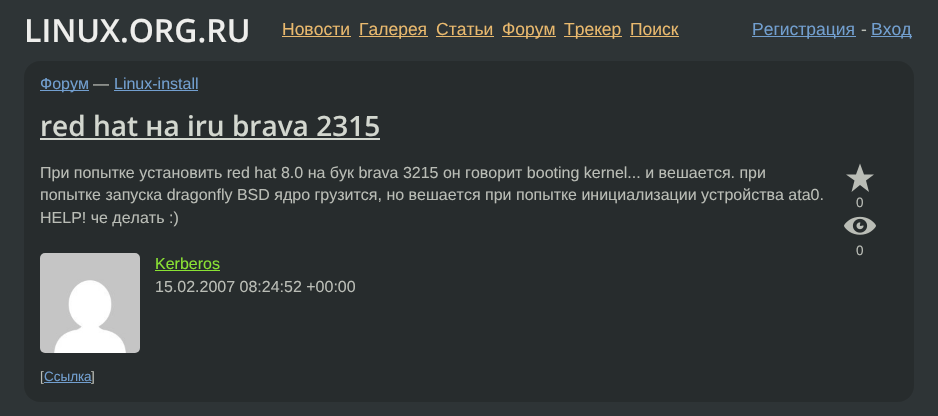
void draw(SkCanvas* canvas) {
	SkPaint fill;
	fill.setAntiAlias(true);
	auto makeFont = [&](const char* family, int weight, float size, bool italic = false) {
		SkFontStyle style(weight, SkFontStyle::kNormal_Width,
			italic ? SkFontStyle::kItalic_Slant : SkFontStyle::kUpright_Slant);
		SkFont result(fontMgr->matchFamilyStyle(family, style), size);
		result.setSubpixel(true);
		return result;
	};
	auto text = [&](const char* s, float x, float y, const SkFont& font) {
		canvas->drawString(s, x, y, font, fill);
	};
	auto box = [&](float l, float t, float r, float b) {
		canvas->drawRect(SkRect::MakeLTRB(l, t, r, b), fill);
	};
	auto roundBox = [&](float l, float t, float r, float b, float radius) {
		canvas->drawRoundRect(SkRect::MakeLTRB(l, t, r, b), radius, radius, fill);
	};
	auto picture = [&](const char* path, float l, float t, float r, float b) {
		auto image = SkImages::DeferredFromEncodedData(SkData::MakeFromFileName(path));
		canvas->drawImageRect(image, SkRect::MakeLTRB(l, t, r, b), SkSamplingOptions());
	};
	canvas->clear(0xFF2E3436);
	fill.setColor(0xFFE9B96E);
	box(282, 36, 351, 37);
	box(359, 36, 428, 37);
	box(436, 36, 494, 37);
	box(502, 36, 556, 37);
	box(564, 36, 622, 37);
	box(630, 36, 679, 37);
	fill.setColor(0xFF729FCF);
	box(752, 36, 856, 37);
	box(871, 36, 912, 37);
	fill.setColor(0xFF272C2D);
	roundBox(24, 61, 914, 402, 16);
	fill.setColor(0xFF729FCF);
	box(40, 90, 89, 91);
	box(114, 90, 198, 91);
	fill.setColor(0xFFD3D7CF);
	box(40, 138, 380, 140);
	fill.setColor(0xFFBABDB6);
	canvas->drawPath(SkPathBuilder().moveTo(860, 163.5f).lineTo(864, 174.5f).lineTo(874, 174.5f).lineTo(866, 180.5f).lineTo(869, 192).lineTo(860, 185).lineTo(851.5f, 192).lineTo(854.5f, 180.5f).lineTo(846, 174.5f).lineTo(856, 174.5f).close().detach(), fill);
	picture("image0.png", 844, 216, 876, 235);
	picture("image1.png", 40, 253, 140, 353);
	fill.setColor(0xFF8AE234);
	box(155, 270, 220, 271);
	fill.setColor(0xFF729FCF);
	box(44, 382, 91, 383);
	auto font1 = makeFont("Open Sans", 600, 32);
	fill.setColor(0xFFEEEEEC);
	text("LINUX.ORG.RU", 24, 42, font1);
	auto font2 = makeFont("Liberation Sans", 400, 17.5f);
	fill.setColor(0xFFE9B96E);
	text("Новости", 282, 35, font2);
	text("Галерея", 359, 35, font2);
	text("Статьи", 436, 35, font2);
	text("Форум", 502, 35, font2);
	text("Трекер", 564, 35, font2);
	text("Поиск", 630, 35, font2);
	fill.setColor(0xFF729FCF);
	text("Регистрация", 752, 35, font2);
	fill.setColor(0xFFBABDB6);
	text("-", 861, 35, font2);
	fill.setColor(0xFF729FCF);
	text("Вход", 871, 35, font2);
	auto font3 = makeFont("Liberation Sans", 400, 16);
	text("Форум", 40, 89, font3);
	fill.setColor(0xFFBABDB6);
	text("—", 93, 89, font3);
	fill.setColor(0xFF729FCF);
	text("Linux-install", 114, 89, font3);
	auto font4 = makeFont("Open Sans", 600, 28);
	fill.setColor(0xFFD3D7CF);
	text("red hat на iru brava 2315", 40, 136, font4);
	fill.setColor(0xFFBABDB6);
	text("При попытке установить red hat 8.0 на бук brava 3215 он говорит booting kernel... и вешается. при", 40, 178, font3);
	text("попытке запуска dragonfly BSD ядро грузится, но вешается при попытке инициализации устройства ata0.", 40, 200, font3);
	text("HELP! че делать :)", 40, 223, font3);
	auto font5 = makeFont("Liberation Sans", 400, 13.5f);
	text("0", 856, 207, font5);
	text("0", 856, 255, font5);
	fill.setColor(0xFF8AE234);
	text("Kerberos", 155, 269, font3);
	fill.setColor(0xFFBABDB6);
	text("15.02.2007 08:24:52 +00:00", 155, 292, font3);
	text("[", 40, 381, font5);
	fill.setColor(0xFF729FCF);
	text("Ссылка", 44, 381, font5);
	fill.setColor(0xFFBABDB6);
	text("]", 91, 381, font5);
}
